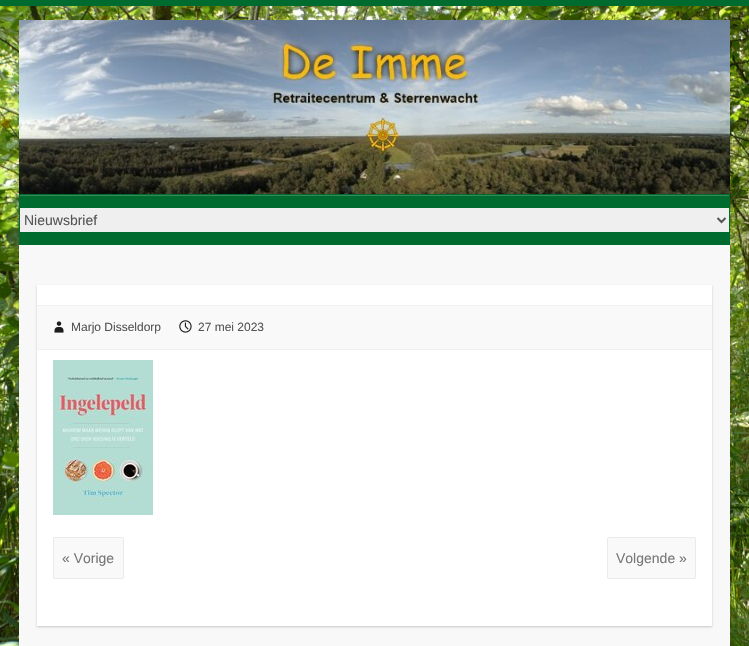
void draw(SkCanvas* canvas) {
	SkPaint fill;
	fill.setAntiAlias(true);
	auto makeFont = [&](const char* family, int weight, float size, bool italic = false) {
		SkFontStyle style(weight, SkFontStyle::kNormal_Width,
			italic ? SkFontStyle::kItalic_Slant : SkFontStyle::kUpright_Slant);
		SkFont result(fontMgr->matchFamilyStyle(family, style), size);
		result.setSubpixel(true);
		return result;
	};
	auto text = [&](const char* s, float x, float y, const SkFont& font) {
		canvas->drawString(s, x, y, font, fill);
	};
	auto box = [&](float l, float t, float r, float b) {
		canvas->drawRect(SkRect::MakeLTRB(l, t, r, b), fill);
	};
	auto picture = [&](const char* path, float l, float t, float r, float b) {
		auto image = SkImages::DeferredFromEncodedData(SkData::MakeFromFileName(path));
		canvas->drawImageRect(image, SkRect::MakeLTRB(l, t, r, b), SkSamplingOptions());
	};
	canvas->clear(0xFFFFFFFF);
	picture("image0.png", 0, 6, 749, 646);
	fill.setColor(0xFF006B2E);
	box(0, 0, 749, 6);
	fill.setColor(0x33000000);
	fill.setMaskFilter(SkMaskFilter::MakeBlur(kNormal_SkBlurStyle, 1));
	canvas->drawRoundRect(SkRect::MakeLTRB(19, 22, 730, 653), 4, 4, fill);
	fill.setMaskFilter(nullptr);
	fill.setColor(0xFFF8F8F8);
	box(19, 245, 730, 646);
	picture("image1.png", 19, 20, 730, 194);
	fill.setColor(0xFF006B2E);
	box(19, 194, 730, 245);
	fill.setColor(0xFF338958);
	box(20, 195, 729, 196);
	fill.setColor(0xFFEFEFEF);
	box(20, 208, 729, 232);
	fill.setStyle(SkPaint::kStroke_Style);
	fill.setStrokeWidth(2);
	fill.setColor(0xFF555555);
	canvas->drawPath(SkPathBuilder().moveTo(717.5f, 218).lineTo(721.5f, 222).lineTo(725.5f, 218).detach(), fill);
	fill.setStyle(SkPaint::kFill_Style);
	fill.setColor(0x33000000);
	fill.setMaskFilter(SkMaskFilter::MakeBlur(kNormal_SkBlurStyle, 1));
	canvas->drawRect(SkRect::MakeLTRB(37, 286, 712, 627), fill);
	fill.setMaskFilter(nullptr);
	fill.setColor(0xFFFFFFFF);
	box(37, 285, 712, 626);
	fill.setColor(0xFFF9F9F9);
	box(37, 306, 712, 349);
	fill.setColor(0xFFF0F0F0);
	box(37, 305, 712, 306);
	box(37, 349, 712, 350);
	picture("image2.png", 54, 321, 64, 333);
	picture("image3.png", 179, 320, 192, 333);
	picture("image4.png", 53, 360, 153, 515);
	fill.setColor(0xFFF9F9F9);
	canvas->drawRoundRect(SkRect::MakeLTRB(53.5f, 537.5f, 123.5f, 578.5f), 1.5f, 1.5f, fill);
	fill.setStyle(SkPaint::kStroke_Style);
	fill.setStrokeWidth(1);
	fill.setColor(0xFFEAEAEA);
	canvas->drawRoundRect(SkRect::MakeLTRB(53.5f, 537.5f, 123.5f, 578.5f), 1.5f, 1.5f, fill);
	fill.setStyle(SkPaint::kFill_Style);
	fill.setColor(0xFFF9F9F9);
	canvas->drawRoundRect(SkRect::MakeLTRB(607.5f, 537.5f, 695.5f, 578.5f), 1.5f, 1.5f, fill);
	fill.setStyle(SkPaint::kStroke_Style);
	fill.setColor(0xFFEAEAEA);
	canvas->drawRoundRect(SkRect::MakeLTRB(607.5f, 537.5f, 695.5f, 578.5f), 1.5f, 1.5f, fill);
	auto font1 = makeFont("Liberation Sans", 400, 14);
	fill.setStyle(SkPaint::kFill_Style);
	fill.setColor(0xFF555555);
	text("Nieuwsbrief", 24, 225, font1);
	auto font2 = makeFont("Liberation Sans", 400, 12);
	text("Marjo Disseldorp", 71, 331, font2);
	text("27 mei 2023", 198, 331, font2);
	fill.setColor(0xFF777777);
	text("« Vorige", 62, 563, font1);
	text("Volgende »", 616, 563, font1);
}
